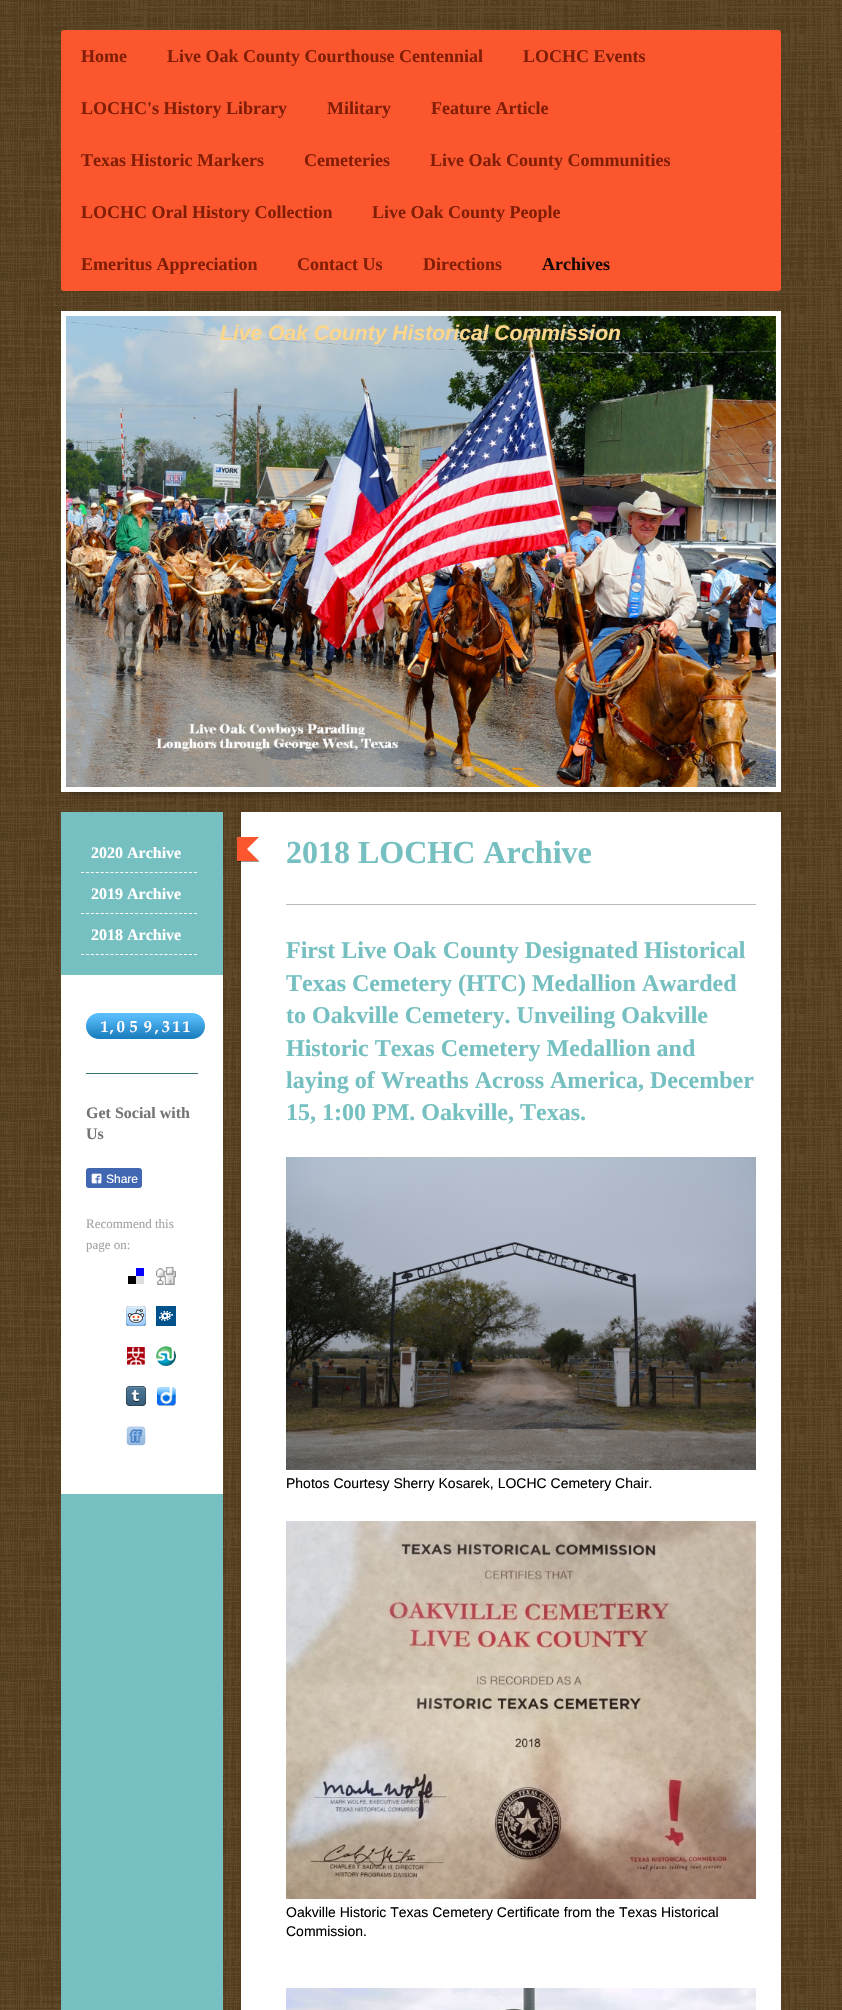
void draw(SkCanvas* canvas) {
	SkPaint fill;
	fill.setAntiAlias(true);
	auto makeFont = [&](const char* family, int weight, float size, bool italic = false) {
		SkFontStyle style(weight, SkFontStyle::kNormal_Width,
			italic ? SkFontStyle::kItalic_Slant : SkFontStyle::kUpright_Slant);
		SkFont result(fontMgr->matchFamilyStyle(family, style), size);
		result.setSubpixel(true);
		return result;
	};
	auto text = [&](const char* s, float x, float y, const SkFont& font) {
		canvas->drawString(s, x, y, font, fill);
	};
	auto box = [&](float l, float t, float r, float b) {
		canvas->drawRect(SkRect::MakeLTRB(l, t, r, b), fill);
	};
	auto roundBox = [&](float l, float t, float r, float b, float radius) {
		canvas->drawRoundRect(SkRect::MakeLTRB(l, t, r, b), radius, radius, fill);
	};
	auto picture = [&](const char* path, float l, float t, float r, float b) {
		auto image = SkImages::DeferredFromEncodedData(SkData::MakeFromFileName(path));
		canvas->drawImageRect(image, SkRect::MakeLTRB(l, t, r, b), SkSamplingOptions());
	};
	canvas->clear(0xFF664A25);
	picture("image0.png", 0, 0, 842, 2010);
	fill.setColor(0xFFFC562E);
	roundBox(61, 30, 781, 291, 3);
	fill.setColor(0x4D000000);
	fill.setMaskFilter(SkMaskFilter::MakeBlur(kNormal_SkBlurStyle, 2.5f));
	canvas->drawRect(SkRect::MakeLTRB(71, 314, 771, 795), fill);
	fill.setMaskFilter(nullptr);
	fill.setStyle(SkPaint::kStroke_Style);
	fill.setStrokeWidth(5);
	fill.setColor(0xFFFFFFFF);
	canvas->drawRect(SkRect::MakeLTRB(63.5f, 313.5f, 778.5f, 789.5f), fill);
	picture("image1.png", 66, 316, 776, 787);
	fill.setStyle(SkPaint::kFill_Style);
	fill.setColor(0xFF76C0C1);
	box(61, 812, 223, 2010);
	fill.setColor(0xFFFFFFFF);
	box(241, 812, 781, 2010);
	fill.setColor(0x66000000);
	box(237, 861, 259, 862);
	fill.setColor(0xFFFC562E);
	canvas->drawPath(SkPathBuilder().moveTo(237, 837).lineTo(259, 837).lineTo(247, 849).close().moveTo(259, 861).lineTo(237, 861).lineTo(247, 849).close().detach(), fill);
	box(237, 837, 247, 861);
	fill.setColor(0xFFBABABA);
	box(286, 904, 756, 905);
	picture("image2.png", 286, 1157, 756, 1470);
	picture("image3.png", 286, 1521, 756, 1899);
	picture("image4.png", 286, 1988, 756, 2010);
	fill.setStyle(SkPaint::kStroke_Style);
	fill.setStrokeWidth(1);
	fill.setColor(0xFFFFFFFF);
	fill.setPathEffect(SkDashPathEffect::Make({{3, 1.91f}}, 0));
	canvas->drawPath(SkPathBuilder().moveTo(81, 872.5f).lineTo(197, 872.5f).detach(), fill);
	fill.setPathEffect(nullptr);
	fill.setPathEffect(SkDashPathEffect::Make({{3, 1.91f}}, 0));
	canvas->drawPath(SkPathBuilder().moveTo(81, 913.5f).lineTo(197, 913.5f).detach(), fill);
	fill.setPathEffect(nullptr);
	fill.setPathEffect(SkDashPathEffect::Make({{3, 1.91f}}, 0));
	canvas->drawPath(SkPathBuilder().moveTo(81, 954.5f).lineTo(197, 954.5f).detach(), fill);
	fill.setPathEffect(nullptr);
	fill.setStyle(SkPaint::kFill_Style);
	box(61, 975, 223, 1494);
	picture("image5.png", 86, 1013, 100, 1039);
	picture("image6.png", 100, 1013, 110, 1039);
	picture("image7.png", 110, 1013, 115, 1039);
	picture("image8.png", 115, 1013, 128, 1039);
	picture("image9.png", 128, 1013, 142, 1039);
	picture("image10.png", 142, 1013, 155, 1039);
	picture("image7.png", 155, 1013, 160, 1039);
	picture("image11.png", 160, 1013, 172, 1039);
	picture("image6.png", 172, 1013, 182, 1039);
	picture("image6.png", 182, 1013, 192, 1039);
	picture("image12.png", 192, 1013, 205, 1039);
	fill.setColor(0xFF387475);
	box(86, 1073, 198, 1074);
	fill.setColor(0xFF4267B2);
	roundBox(86, 1168, 142, 1188, 3);
	picture("image13.png", 91, 1173, 102, 1184);
	picture("image14.png", 128, 1268, 144, 1284);
	picture("image15.png", 156, 1267, 176, 1285);
	picture("image16.png", 126, 1306, 146, 1326);
	picture("image17.png", 156, 1306, 176, 1326);
	picture("image18.png", 126, 1346, 146, 1365);
	picture("image19.png", 156, 1346, 176, 1366);
	picture("image20.png", 126, 1386, 146, 1406);
	picture("image21.png", 157, 1387, 176, 1406);
	picture("image22.png", 126, 1426, 146, 1446);
	auto font1 = makeFont("Liberation Serif", 700, 18);
	fill.setColor(0xFF831E06);
	text("Home", 81, 62, font1);
	text("Live Oak County Courthouse Centennial", 167, 62, font1);
	text("LOCHC Events", 523, 62, font1);
	text("LOCHC's History Library", 81, 114, font1);
	text("Military", 327, 114, font1);
	text("Feature Article", 431, 114, font1);
	text("Texas Historic Markers", 81, 166, font1);
	text("Cemeteries", 304, 166, font1);
	text("Live Oak County Communities", 430, 166, font1);
	text("LOCHC Oral History Collection", 81, 218, font1);
	text("Live Oak County People", 372, 218, font1);
	text("Emeritus Appreciation", 81, 270, font1);
	text("Contact Us", 297, 270, font1);
	text("Directions", 423, 270, font1);
	fill.setColor(0xFF190905);
	text("Archives", 542, 270, font1);
	auto font2 = makeFont("Liberation Sans", 700, 21.1f, true);
	fill.setColor(0xFFFCD68B);
	text("Live Oak County Historical Commission", 220, 340, font2);
	auto font3 = makeFont("Liberation Serif", 700, 32);
	fill.setColor(0xFF76C0C1);
	text("2018 LOCHC Archive", 286, 863, font3);
	auto font4 = makeFont("Liberation Serif", 700, 24);
	text("First Live Oak County Designated Historical", 286, 958, font4);
	text("Texas Cemetery (HTC) Medallion Awarded", 286, 991, font4);
	text("to Oakville Cemetery. Unveiling Oakville", 286, 1023, font4);
	text("Historic Texas Cemetery Medallion and", 286, 1056, font4);
	text("laying of Wreaths Across America, December", 286, 1088, font4);
	text("15, 1:00 PM. Oakville, Texas.", 286, 1120, font4);
	auto font5 = makeFont("Liberation Sans", 400, 14);
	fill.setColor(0xFF000000);
	text("Photos Courtesy Sherry Kosarek, LOCHC Cemetery Chair.", 286, 1488, font5);
	text("Oakville Historic Texas Cemetery Certificate from the Texas Historical", 286, 1917, font5);
	text("Commission.", 286, 1936, font5);
	auto font6 = makeFont("Liberation Serif", 700, 16);
	fill.setColor(0xFFFFFFFF);
	text("2020 Archive", 91, 858, font6);
	text("2019 Archive", 91, 899, font6);
	text("2018 Archive", 91, 940, font6);
	fill.setColor(0xFF757575);
	text("Get Social with", 86, 1118, font6);
	text("Us", 86, 1139, font6);
	auto font7 = makeFont("Liberation Sans", 400, 12);
	fill.setColor(0xFFFFFFFF);
	text("Share", 106, 1183, font7);
	auto font8 = makeFont("Liberation Serif", 400, 13);
	fill.setColor(0xFFA3A3A3);
	text("Recommend this", 86, 1228, font8);
	text("page on:", 86, 1249, font8);
}
